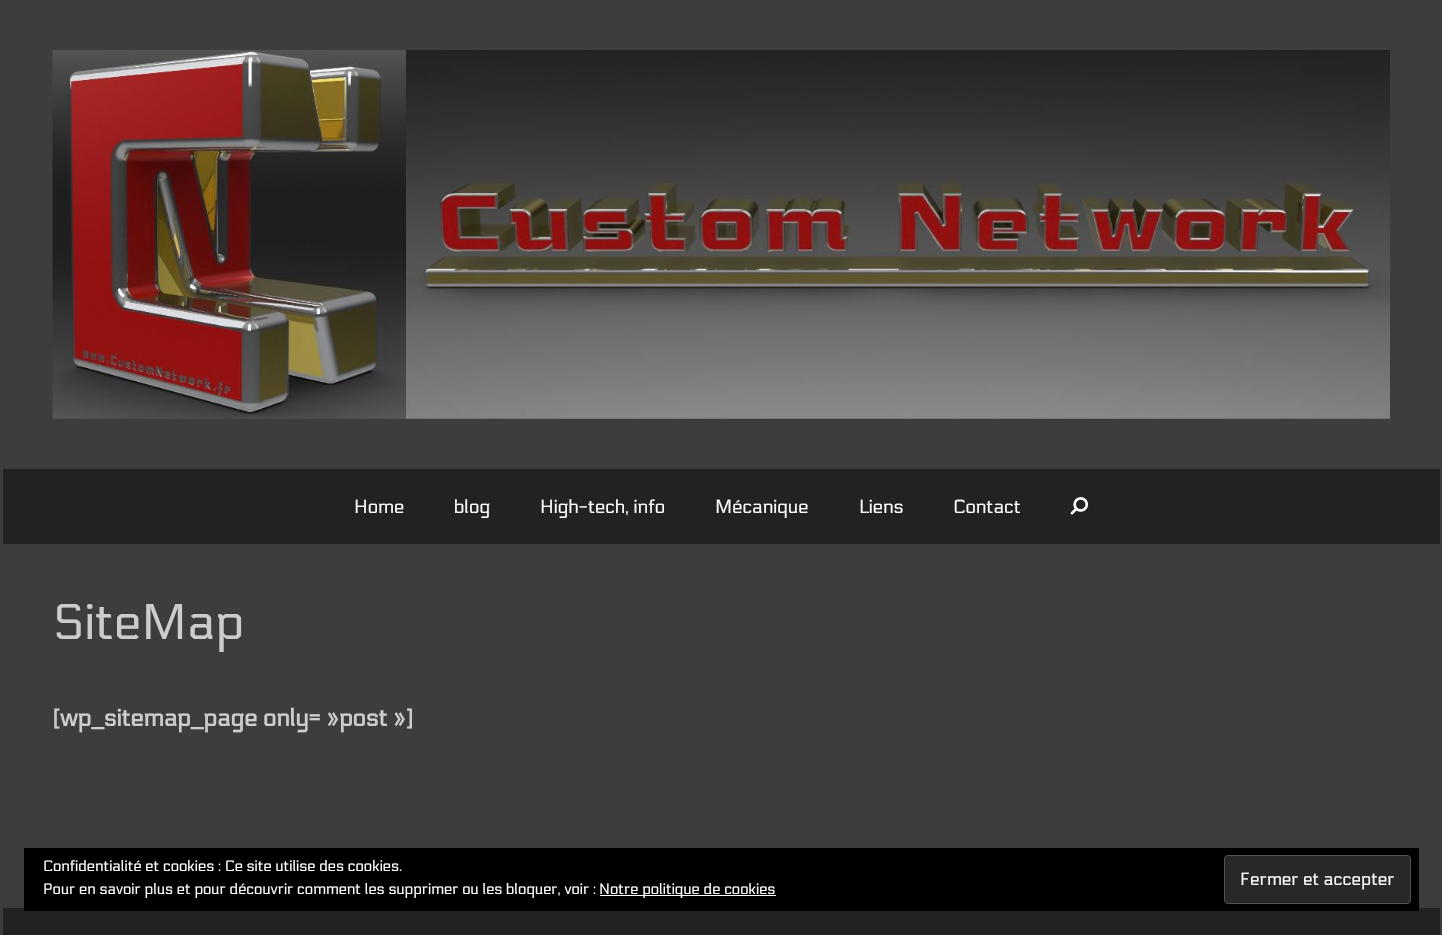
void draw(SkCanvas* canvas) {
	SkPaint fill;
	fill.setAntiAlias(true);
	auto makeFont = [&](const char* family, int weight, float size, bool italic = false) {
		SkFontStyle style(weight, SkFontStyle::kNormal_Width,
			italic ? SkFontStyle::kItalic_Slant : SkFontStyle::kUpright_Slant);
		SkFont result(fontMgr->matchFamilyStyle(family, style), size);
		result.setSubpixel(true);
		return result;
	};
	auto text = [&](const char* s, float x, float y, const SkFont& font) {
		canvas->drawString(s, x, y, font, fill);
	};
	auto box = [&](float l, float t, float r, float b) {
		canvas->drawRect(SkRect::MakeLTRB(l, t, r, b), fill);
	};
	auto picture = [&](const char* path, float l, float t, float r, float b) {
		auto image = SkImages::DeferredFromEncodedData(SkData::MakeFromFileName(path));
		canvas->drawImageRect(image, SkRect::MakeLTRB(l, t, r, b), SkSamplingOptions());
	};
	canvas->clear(0xFF3D3D3D);
	picture("image0.png", 52, 50, 1390, 419);
	fill.setColor(0xFF222222);
	box(3, 469, 1440, 544);
	picture("image1.png", 1070, 497, 1089, 515);
	box(3, 908, 1440, 935);
	fill.setColor(0xFF000000);
	box(24, 848, 1419, 911);
	fill.setColor(0xFFFFFFFF);
	box(600, 895, 776, 896);
	fill.setColor(0xFF282828);
	canvas->drawRoundRect(SkRect::MakeLTRB(1224.5f, 855.5f, 1410.5f, 903.5f), 3.5f, 3.5f, fill);
	fill.setStyle(SkPaint::kStroke_Style);
	fill.setStrokeWidth(1);
	fill.setColor(0xFF535353);
	canvas->drawRoundRect(SkRect::MakeLTRB(1224.5f, 855.5f, 1410.5f, 903.5f), 3.5f, 3.5f, fill);
	auto font1 = makeFont("Electrolize", 400, 18.75f);
	fill.setStyle(SkPaint::kFill_Style);
	fill.setColor(0xFFFFFFFF);
	text("Home", 354, 513, font1);
	text("blog", 454, 513, font1);
	text("High-tech, info", 540, 513, font1);
	text("Mécanique", 715, 513, font1);
	text("Liens", 859, 513, font1);
	text("Contact", 953, 513, font1);
	auto font2 = makeFont("Electrolize", 400, 50);
	fill.setColor(0xFFCCCCCC);
	text("SiteMap", 53, 639, font2);
	auto font3 = makeFont("Electrolize", 700, 23.75f);
	text("[wp_sitemap_page only= »post »]", 53, 726, font3);
	auto font4 = makeFont("Electrolize", 400, 15);
	fill.setColor(0xFFFFFFFF);
	text("Confidentialité et cookies : Ce site utilise des cookies.", 43, 871, font4);
	text("Pour en savoir plus et pour découvrir comment les supprimer ou les bloquer, voir :", 43, 894, font4);
	text("Notre politique de cookies", 599, 894, font4);
	auto font5 = makeFont("Electrolize", 400, 17.5f);
	text("Fermer et accepter", 1240, 885, font5);
}
